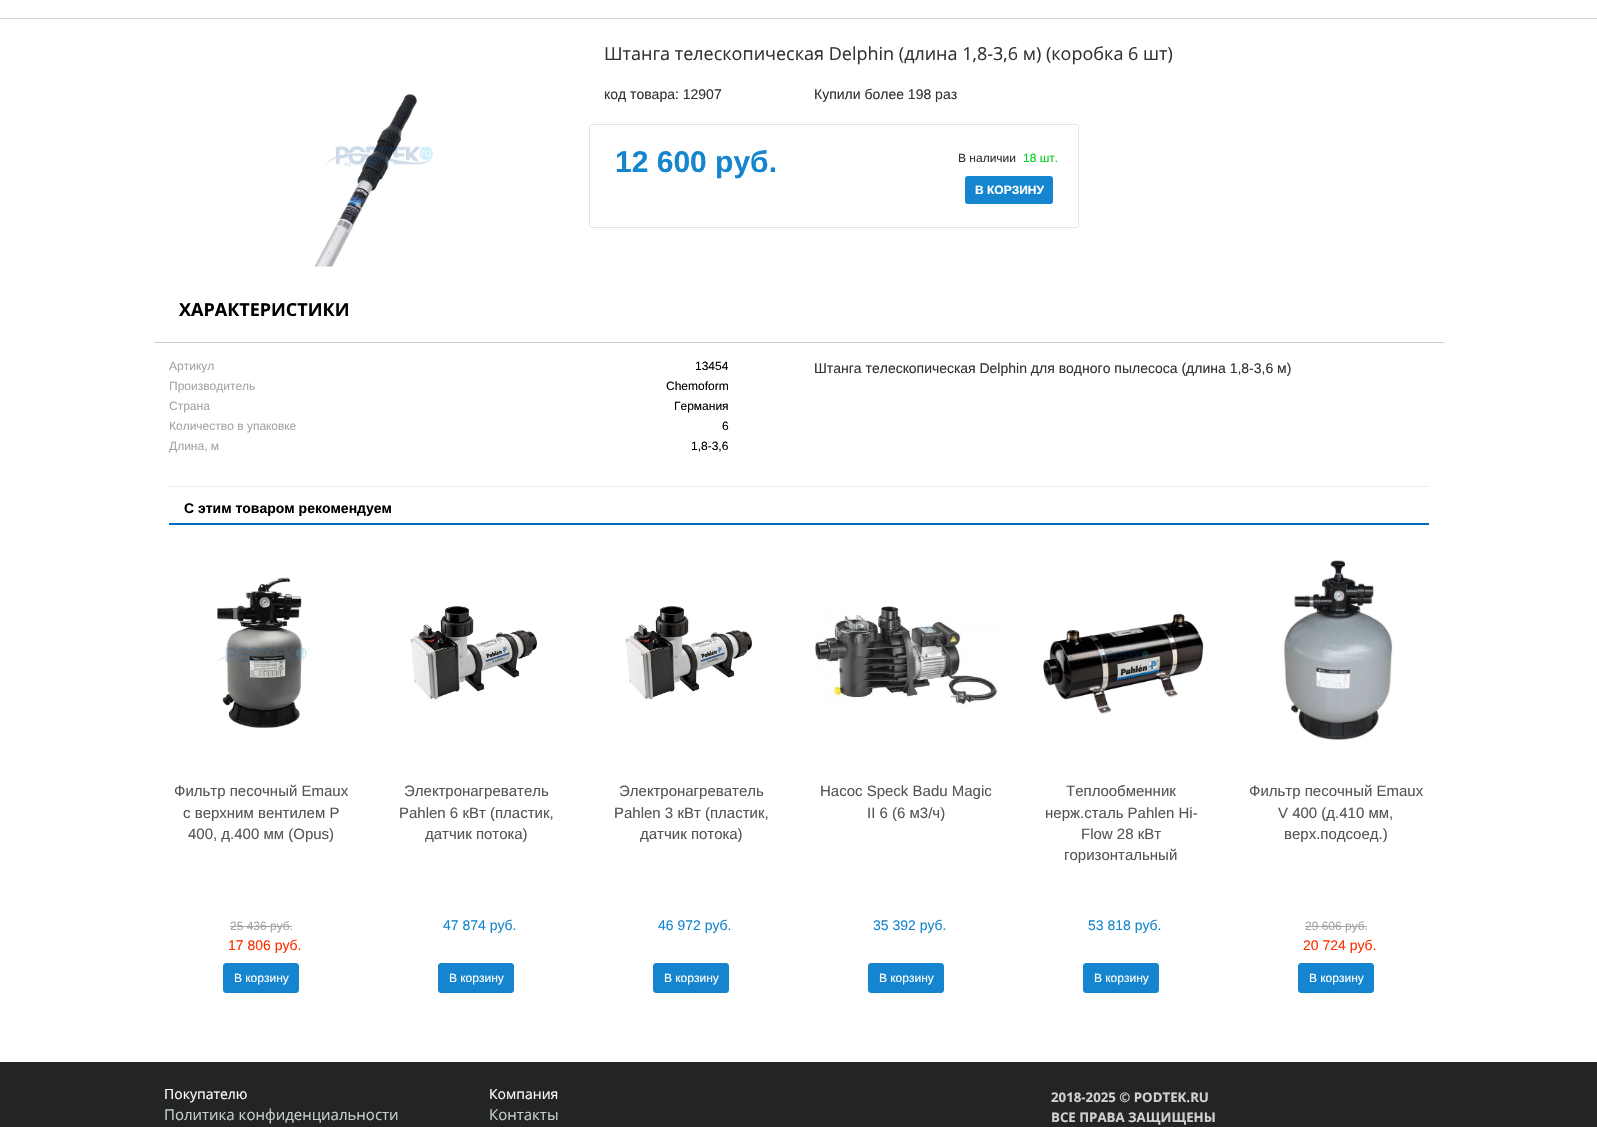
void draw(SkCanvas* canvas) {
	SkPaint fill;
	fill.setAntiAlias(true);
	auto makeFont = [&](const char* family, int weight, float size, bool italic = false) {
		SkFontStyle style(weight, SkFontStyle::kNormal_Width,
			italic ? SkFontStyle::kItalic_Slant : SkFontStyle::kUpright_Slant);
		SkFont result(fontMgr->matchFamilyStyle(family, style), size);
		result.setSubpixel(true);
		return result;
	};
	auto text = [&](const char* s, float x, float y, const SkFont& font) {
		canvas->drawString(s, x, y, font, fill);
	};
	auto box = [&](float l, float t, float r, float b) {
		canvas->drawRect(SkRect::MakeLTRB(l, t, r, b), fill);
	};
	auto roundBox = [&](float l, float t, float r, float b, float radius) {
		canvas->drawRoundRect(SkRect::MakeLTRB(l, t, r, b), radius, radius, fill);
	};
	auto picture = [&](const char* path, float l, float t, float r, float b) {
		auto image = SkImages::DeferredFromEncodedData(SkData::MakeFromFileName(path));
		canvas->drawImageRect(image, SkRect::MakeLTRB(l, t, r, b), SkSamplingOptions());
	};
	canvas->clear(0xFFFFFFFF);
	fill.setColor(0xFFC9D3D8);
	box(0, 18, 1597, 19);
	picture("image0.png", 314, 94, 433, 267);
	picture("image1.png", 314, 266, 333, 267);
	fill.setStyle(SkPaint::kStroke_Style);
	fill.setStrokeWidth(1);
	fill.setColor(0xFFE4E4E4);
	canvas->drawRoundRect(SkRect::MakeLTRB(589.5f, 124.5f, 1078.5f, 227.5f), 2.5f, 2.5f, fill);
	fill.setStyle(SkPaint::kFill_Style);
	fill.setColor(0xFF1485CE);
	roundBox(965, 176, 1053, 204, 3);
	fill.setColor(0xFFEDEDED);
	box(169, 486, 1429, 487);
	fill.setColor(0xFFCCCCCC);
	box(154, 342, 1444, 343);
	fill.setColor(0xFF006CC0);
	box(169, 523, 1429, 525);
	picture("image2.png", 216, 577, 307, 728);
	fill.setColor(0xFFA5A5A5);
	box(230, 926, 292, 927);
	fill.setColor(0xFF1485CE);
	canvas->drawRoundRect(SkRect::MakeLTRB(223.5f, 963.5f, 298.5f, 992.5f), 2.5f, 2.5f, fill);
	fill.setStyle(SkPaint::kStroke_Style);
	canvas->drawRoundRect(SkRect::MakeLTRB(223.5f, 963.5f, 298.5f, 992.5f), 2.5f, 2.5f, fill);
	picture("image3.png", 410, 606, 537, 700);
	fill.setStyle(SkPaint::kFill_Style);
	canvas->drawRoundRect(SkRect::MakeLTRB(438.5f, 963.5f, 513.5f, 992.5f), 2.5f, 2.5f, fill);
	fill.setStyle(SkPaint::kStroke_Style);
	canvas->drawRoundRect(SkRect::MakeLTRB(438.5f, 963.5f, 513.5f, 992.5f), 2.5f, 2.5f, fill);
	picture("image3.png", 625, 606, 752, 700);
	fill.setStyle(SkPaint::kFill_Style);
	canvas->drawRoundRect(SkRect::MakeLTRB(653.5f, 963.5f, 728.5f, 992.5f), 2.5f, 2.5f, fill);
	fill.setStyle(SkPaint::kStroke_Style);
	canvas->drawRoundRect(SkRect::MakeLTRB(653.5f, 963.5f, 728.5f, 992.5f), 2.5f, 2.5f, fill);
	picture("image4.png", 815, 606, 998, 705);
	fill.setStyle(SkPaint::kFill_Style);
	canvas->drawRoundRect(SkRect::MakeLTRB(868.5f, 963.5f, 943.5f, 992.5f), 2.5f, 2.5f, fill);
	fill.setStyle(SkPaint::kStroke_Style);
	canvas->drawRoundRect(SkRect::MakeLTRB(868.5f, 963.5f, 943.5f, 992.5f), 2.5f, 2.5f, fill);
	picture("image5.png", 1043, 613, 1204, 714);
	fill.setStyle(SkPaint::kFill_Style);
	canvas->drawRoundRect(SkRect::MakeLTRB(1083.5f, 963.5f, 1158.5f, 992.5f), 2.5f, 2.5f, fill);
	fill.setStyle(SkPaint::kStroke_Style);
	canvas->drawRoundRect(SkRect::MakeLTRB(1083.5f, 963.5f, 1158.5f, 992.5f), 2.5f, 2.5f, fill);
	picture("image6.png", 1283, 560, 1393, 740);
	fill.setStyle(SkPaint::kFill_Style);
	fill.setColor(0xFFA5A5A5);
	box(1305, 926, 1367, 927);
	fill.setColor(0xFF1485CE);
	canvas->drawRoundRect(SkRect::MakeLTRB(1298.5f, 963.5f, 1373.5f, 992.5f), 2.5f, 2.5f, fill);
	fill.setStyle(SkPaint::kStroke_Style);
	canvas->drawRoundRect(SkRect::MakeLTRB(1298.5f, 963.5f, 1373.5f, 992.5f), 2.5f, 2.5f, fill);
	fill.setStyle(SkPaint::kFill_Style);
	fill.setColor(0xFF222425);
	box(0, 1062, 1597, 1127);
	auto font1 = makeFont("Open Sans", 400, 18);
	fill.setColor(0xFF333333);
	text("Штанга телескопическая Delphin (длина 1,8-3,6 м) (коробка 6 шт)", 604, 60, font1);
	auto font2 = makeFont("Liberation Sans", 400, 14);
	text("код товара: 12907", 604, 99, font2);
	text("Купили более 198 раз", 814, 99, font2);
	auto font3 = makeFont("Liberation Sans", 700, 30);
	fill.setColor(0xFF1485CE);
	text("12 600 руб.", 615, 172, font3);
	auto font4 = makeFont("Liberation Sans", 400, 12);
	fill.setColor(0xFF333333);
	text("В наличии", 958, 162, font4);
	fill.setColor(0xFF00CF1D);
	text("18 шт.", 1023, 162, font4);
	auto font5 = makeFont("Liberation Sans", 700, 12);
	fill.setColor(0xFFFFFFFF);
	text("В КОРЗИНУ", 975, 194, font5);
	auto font6 = makeFont("Open Sans", 700, 18);
	fill.setColor(0xFF000000);
	text("ХАРАКТЕРИСТИКИ", 179, 316, font6);
	fill.setColor(0xFFA5A5A5);
	text("Артикул", 169, 370, font4);
	fill.setColor(0xFF000000);
	text("13454", 695, 370, font4);
	fill.setColor(0xFFA5A5A5);
	text("Производитель", 169, 390, font4);
	fill.setColor(0xFF000000);
	text("Chemoform", 666, 390, font4);
	fill.setColor(0xFFA5A5A5);
	text("Страна", 169, 410, font4);
	fill.setColor(0xFF000000);
	text("Германия", 674, 410, font4);
	fill.setColor(0xFFA5A5A5);
	text("Количество в упаковке", 169, 430, font4);
	fill.setColor(0xFF000000);
	text("6", 722, 430, font4);
	canvas->save();
	canvas->clipRect(SkRect::MakeLTRB(169, 358, 729, 484));
	fill.setColor(0xFFA5A5A5);
	text("Длина, м", 169, 450, font4);
	canvas->restore();
	fill.setColor(0xFF000000);
	text("1,8-3,6", 691, 450, font4);
	fill.setColor(0xFF333333);
	text("Штанга телескопическая Delphin для водного пылесоса (длина 1,8-3,6 м)", 814, 373, font2);
	auto font7 = makeFont("Liberation Sans", 700, 14);
	fill.setColor(0xFF000000);
	text("С этим товаром рекомендуем", 184, 513, font7);
	auto font8 = makeFont("Liberation Sans", 400, 15);
	fill.setColor(0xFF555555);
	text("Фильтр песочный Emaux", 174, 796, font8);
	text("с верхним вентилем P", 183, 818, font8);
	text("400, д.400 мм (Opus)", 188, 839, font8);
	fill.setColor(0xFFA5A5A5);
	text("25 436 руб.", 230, 930, font4);
	fill.setColor(0xFFFF2E00);
	text("17 806 руб.", 228, 950, font2);
	fill.setColor(0xFFFFFFFF);
	text("В корзину", 234, 982, font4);
	fill.setColor(0xFF555555);
	text("Электронагреватель", 404, 796, font8);
	text("Pahlen 6 кВт (пластик,", 399, 818, font8);
	text("датчик потока)", 425, 839, font8);
	fill.setColor(0xFF1485CE);
	text("47 874 руб.", 443, 930, font2);
	fill.setColor(0xFFFFFFFF);
	text("В корзину", 449, 982, font4);
	fill.setColor(0xFF555555);
	text("Электронагреватель", 619, 796, font8);
	text("Pahlen 3 кВт (пластик,", 614, 818, font8);
	text("датчик потока)", 640, 839, font8);
	fill.setColor(0xFF1485CE);
	text("46 972 руб.", 658, 930, font2);
	fill.setColor(0xFFFFFFFF);
	text("В корзину", 664, 982, font4);
	fill.setColor(0xFF555555);
	text("Насос Speck Badu Magic", 820, 796, font8);
	text("II 6 (6 м3/ч)", 867, 818, font8);
	fill.setColor(0xFF1485CE);
	text("35 392 руб.", 873, 930, font2);
	fill.setColor(0xFFFFFFFF);
	text("В корзину", 879, 982, font4);
	fill.setColor(0xFF555555);
	text("Теплообменник", 1066, 796, font8);
	text("нерж.сталь Pahlen Hi-", 1045, 818, font8);
	text("Flow 28 кВт", 1081, 839, font8);
	text("горизонтальный", 1064, 860, font8);
	fill.setColor(0xFF1485CE);
	text("53 818 руб.", 1088, 930, font2);
	fill.setColor(0xFFFFFFFF);
	text("В корзину", 1094, 982, font4);
	fill.setColor(0xFF555555);
	text("Фильтр песочный Emaux", 1249, 796, font8);
	text("V 400 (д.410 мм,", 1278, 818, font8);
	text("верх.подсоед.)", 1284, 839, font8);
	fill.setColor(0xFFA5A5A5);
	text("29 606 руб.", 1305, 930, font4);
	fill.setColor(0xFFFF2E00);
	text("20 724 руб.", 1303, 950, font2);
	fill.setColor(0xFFFFFFFF);
	text("В корзину", 1309, 982, font4);
	auto font9 = makeFont("Open Sans", 400, 14);
	text("Покупателю", 164, 1099, font9);
	auto font10 = makeFont("Open Sans", 400, 15);
	fill.setColor(0xFFC8CECE);
	text("Политика конфиденциальности", 164, 1120, font10);
	fill.setColor(0xFFFFFFFF);
	text("Компания", 489, 1099, font9);
	fill.setColor(0xFFC8CECE);
	text("Контакты", 489, 1120, font10);
	auto font11 = makeFont("Open Sans", 700, 13.25f);
	fill.setColor(0xFFCFD0D0);
	text("2018-2025 © PODTEK.RU", 1051, 1102, font11);
	text("ВСЕ ПРАВА ЗАЩИЩЕНЫ", 1051, 1122, font11);
}
